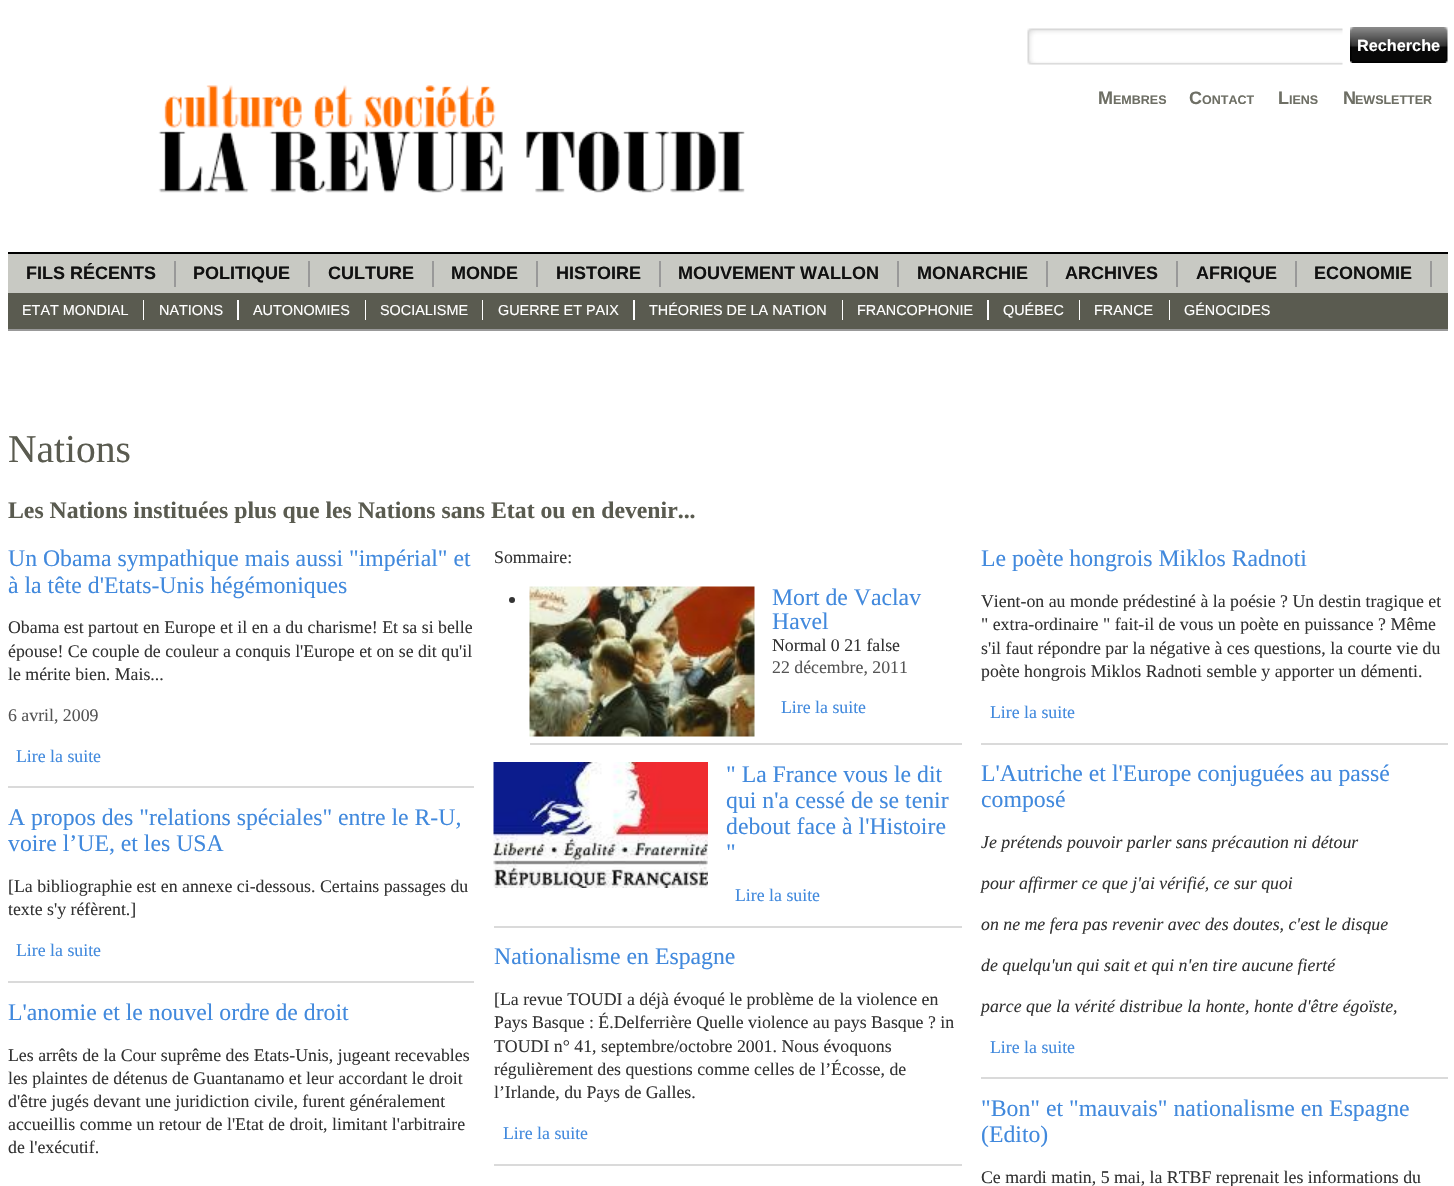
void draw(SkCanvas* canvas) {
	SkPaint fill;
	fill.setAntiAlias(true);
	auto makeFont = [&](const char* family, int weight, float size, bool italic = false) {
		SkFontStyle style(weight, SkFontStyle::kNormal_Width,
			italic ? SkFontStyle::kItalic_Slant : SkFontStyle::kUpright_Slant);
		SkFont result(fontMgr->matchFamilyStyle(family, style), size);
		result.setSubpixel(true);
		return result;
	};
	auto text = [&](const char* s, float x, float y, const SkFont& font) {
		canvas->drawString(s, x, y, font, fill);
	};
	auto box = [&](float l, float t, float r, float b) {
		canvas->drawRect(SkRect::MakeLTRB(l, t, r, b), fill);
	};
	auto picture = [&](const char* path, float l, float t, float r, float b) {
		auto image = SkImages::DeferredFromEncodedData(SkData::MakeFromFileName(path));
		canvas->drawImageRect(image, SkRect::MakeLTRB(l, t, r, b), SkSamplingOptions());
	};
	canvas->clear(0xFFFFFFFF);
	picture("image0.png", 1027, 28, 1343, 65);
	picture("image1.png", 1350, 27, 1448, 63);
	picture("image2.png", 158, 85, 745, 193);
	fill.setColor(0xFF999999);
	box(8, 329, 1448, 331);
	fill.setColor(0xFFC8C9C3);
	box(8, 254, 1448, 293);
	fill.setColor(0xFF000000);
	box(8, 252, 1448, 254);
	fill.setColor(0xFF999999);
	box(174, 261, 176, 287);
	box(308, 261, 310, 287);
	box(432, 261, 434, 287);
	box(536, 261, 538, 287);
	box(659, 261, 661, 287);
	box(897, 261, 899, 287);
	box(1046, 261, 1048, 287);
	box(1176, 261, 1178, 287);
	box(1295, 261, 1297, 287);
	box(1430, 261, 1432, 287);
	fill.setColor(0xFF5A5B50);
	box(8, 293, 1448, 329);
	fill.setColor(0xFFFFFFFF);
	box(143, 300, 144, 320);
	box(237, 300, 239, 320);
	box(365, 300, 366, 320);
	box(482, 300, 483, 320);
	box(633, 300, 635, 320);
	box(842, 300, 843, 320);
	box(987, 300, 989, 320);
	box(1079, 300, 1080, 320);
	box(1169, 300, 1170, 320);
	fill.setColor(0xFFDADADA);
	box(8, 786, 474, 788);
	box(8, 981, 474, 983);
	fill.setColor(0xFF333333);
	canvas->drawCircle(512, 600, 3, fill);
	fill.setColor(0xFFDADADA);
	box(530, 743, 962, 745);
	picture("image3.png", 529, 586, 755, 737);
	box(494, 926, 962, 928);
	picture("image4.png", 493, 762, 708, 888);
	box(494, 1164, 962, 1166);
	box(981, 743, 1448, 745);
	box(981, 1077, 1448, 1079);
	auto font1 = makeFont("Liberation Sans", 700, 16.25f);
	fill.setColor(0xFFFFFFFF);
	text("Recherche", 1357, 51, font1);
	auto font2 = makeFont("Liberation Sans", 700, 18);
	fill.setColor(0xFF6E6F65);
	text("M", 1098, 104, font2);
	auto font3 = makeFont("Liberation Sans", 700, 12.5f);
	text("EMBRES", 1113, 104, font3);
	text("C", 1189, 104, font2);
	text("ONTACT", 1202, 104, font3);
	text("L", 1278, 104, font2);
	text("IENS", 1289, 104, font3);
	text("N", 1343, 104, font2);
	text("EWSLETTER", 1355, 104, font3);
	fill.setColor(0xFF111111);
	text("FILS RÉCENTS", 26, 279, font2);
	text("POLITIQUE", 193, 279, font2);
	text("CULTURE", 328, 279, font2);
	text("MONDE", 451, 279, font2);
	text("HISTOIRE", 556, 279, font2);
	text("MOUVEMENT WALLON", 678, 279, font2);
	text("MONARCHIE", 917, 279, font2);
	text("ARCHIVES", 1065, 279, font2);
	text("AFRIQUE", 1196, 279, font2);
	text("ECONOMIE", 1314, 279, font2);
	auto font4 = makeFont("Liberation Sans", 400, 14.4f);
	fill.setColor(0xFFFFFFFF);
	text("ETAT MONDIAL", 22, 315, font4);
	text("NATIONS", 159, 315, font4);
	text("AUTONOMIES", 253, 315, font4);
	text("SOCIALISME", 380, 315, font4);
	text("GUERRE ET PAIX", 498, 315, font4);
	text("THÉORIES DE LA NATION", 649, 315, font4);
	text("FRANCOPHONIE", 857, 315, font4);
	text("QUÉBEC", 1003, 315, font4);
	text("FRANCE", 1094, 315, font4);
	text("GÉNOCIDES", 1184, 315, font4);
	auto font5 = makeFont("Liberation Serif", 400, 39.5f);
	fill.setColor(0xFF5A5B50);
	text("Nations", 8, 462, font5);
	auto font6 = makeFont("Liberation Serif", 700, 23.75f);
	text("Les Nations instituées plus que les Nations sans Etat ou en devenir...", 8, 518, font6);
	auto font7 = makeFont("Liberation Serif", 400, 23.75f);
	fill.setColor(0xFF4189DD);
	text("Un Obama sympathique mais aussi \"impérial\" et", 8, 566, font7);
	text("à la tête d'Etats-Unis hégémoniques", 8, 593, font7);
	auto font8 = makeFont("Liberation Serif", 400, 17.8f);
	fill.setColor(0xFF333333);
	text("Obama est partout en Europe et il en a du charisme! Et sa si belle", 8, 633, font8);
	text("épouse! Ce couple de couleur a conquis l'Europe et on se dit qu'il", 8, 657, font8);
	text("le mérite bien. Mais...", 8, 680, font8);
	fill.setColor(0xFF555555);
	text("6 avril, 2009", 8, 721, font8);
	fill.setColor(0xFF4189DD);
	text("Lire la suite", 16, 762, font8);
	text("A propos des \"relations spéciales\" entre le R-U,", 8, 825, font7);
	text("voire l’UE, et les USA", 8, 851, font7);
	fill.setColor(0xFF333333);
	text("[La bibliographie est en annexe ci-dessous. Certains passages du", 8, 892, font8);
	text("texte s'y réfèrent.]", 8, 915, font8);
	fill.setColor(0xFF4189DD);
	text("Lire la suite", 16, 956, font8);
	text("L'anomie et le nouvel ordre de droit", 8, 1020, font7);
	fill.setColor(0xFF333333);
	text("Les arrêts de la Cour suprême des Etats-Unis, jugeant recevables", 8, 1061, font8);
	text("les plaintes de détenus de Guantanamo et leur accordant le droit", 8, 1084, font8);
	text("d'être jugés devant une juridiction civile, furent généralement", 8, 1107, font8);
	text("accueillis comme un retour de l'Etat de droit, limitant l'arbitraire", 8, 1130, font8);
	text("de l'exécutif.", 8, 1153, font8);
	text("Sommaire:", 494, 563, font8);
	fill.setColor(0xFF4189DD);
	text("Mort de Vaclav", 772, 605, font7);
	text("Havel", 772, 629, font7);
	fill.setColor(0xFF333333);
	text("Normal 0 21 false", 772, 651, font8);
	fill.setColor(0xFF555555);
	text("22 décembre, 2011", 772, 673, font8);
	fill.setColor(0xFF4189DD);
	text("Lire la suite", 781, 713, font8);
	text("\" La France vous le dit", 726, 782, font7);
	text("qui n'a cessé de se tenir", 726, 808, font7);
	text("debout face à l'Histoire", 726, 834, font7);
	text("\"", 726, 860, font7);
	text("Lire la suite", 735, 901, font8);
	text("Nationalisme en Espagne", 494, 964, font7);
	fill.setColor(0xFF333333);
	text("[La revue TOUDI a déjà évoqué le problème de la violence en", 494, 1005, font8);
	text("Pays Basque : É.Delferrière Quelle violence au pays Basque ? in", 494, 1028, font8);
	text("TOUDI n° 41, septembre/octobre 2001. Nous évoquons", 494, 1052, font8);
	text("régulièrement des questions comme celles de l’Écosse, de", 494, 1075, font8);
	text("l’Irlande, du Pays de Galles.", 494, 1098, font8);
	fill.setColor(0xFF4189DD);
	text("Lire la suite", 503, 1139, font8);
	text("Le poète hongrois Miklos Radnoti", 981, 566, font7);
	fill.setColor(0xFF333333);
	text("Vient-on au monde prédestiné à la poésie ? Un destin tragique et", 981, 607, font8);
	text("\" extra-ordinaire \" fait-il de vous un poète en puissance ? Même", 981, 630, font8);
	text("s'il faut répondre par la négative à ces questions, la courte vie du", 981, 654, font8);
	text("poète hongrois Miklos Radnoti semble y apporter un démenti.", 981, 677, font8);
	fill.setColor(0xFF4189DD);
	text("Lire la suite", 990, 718, font8);
	text("L'Autriche et l'Europe conjuguées au passé", 981, 781, font7);
	text("composé", 981, 807, font7);
	auto font9 = makeFont("Liberation Serif", 400, 17.8f, true);
	fill.setColor(0xFF333333);
	text("Je prétends pouvoir parler sans précaution ni détour", 981, 848, font9);
	text("pour affirmer ce que j'ai vérifié, ce sur quoi", 981, 889, font9);
	text("on ne me fera pas revenir avec des doutes, c'est le disque", 981, 930, font9);
	text("de quelqu'un qui sait et qui n'en tire aucune fierté", 981, 971, font9);
	text("parce que la vérité distribue la honte, honte d'être égoïste,", 981, 1012, font9);
	fill.setColor(0xFF4189DD);
	text("Lire la suite", 990, 1053, font8);
	text("\"Bon\" et \"mauvais\" nationalisme en Espagne", 981, 1116, font7);
	text("(Edito)", 981, 1142, font7);
	fill.setColor(0xFF333333);
	text("Ce mardi matin, 5 mai, la RTBF reprenait les informations du", 981, 1183, font8);
}
